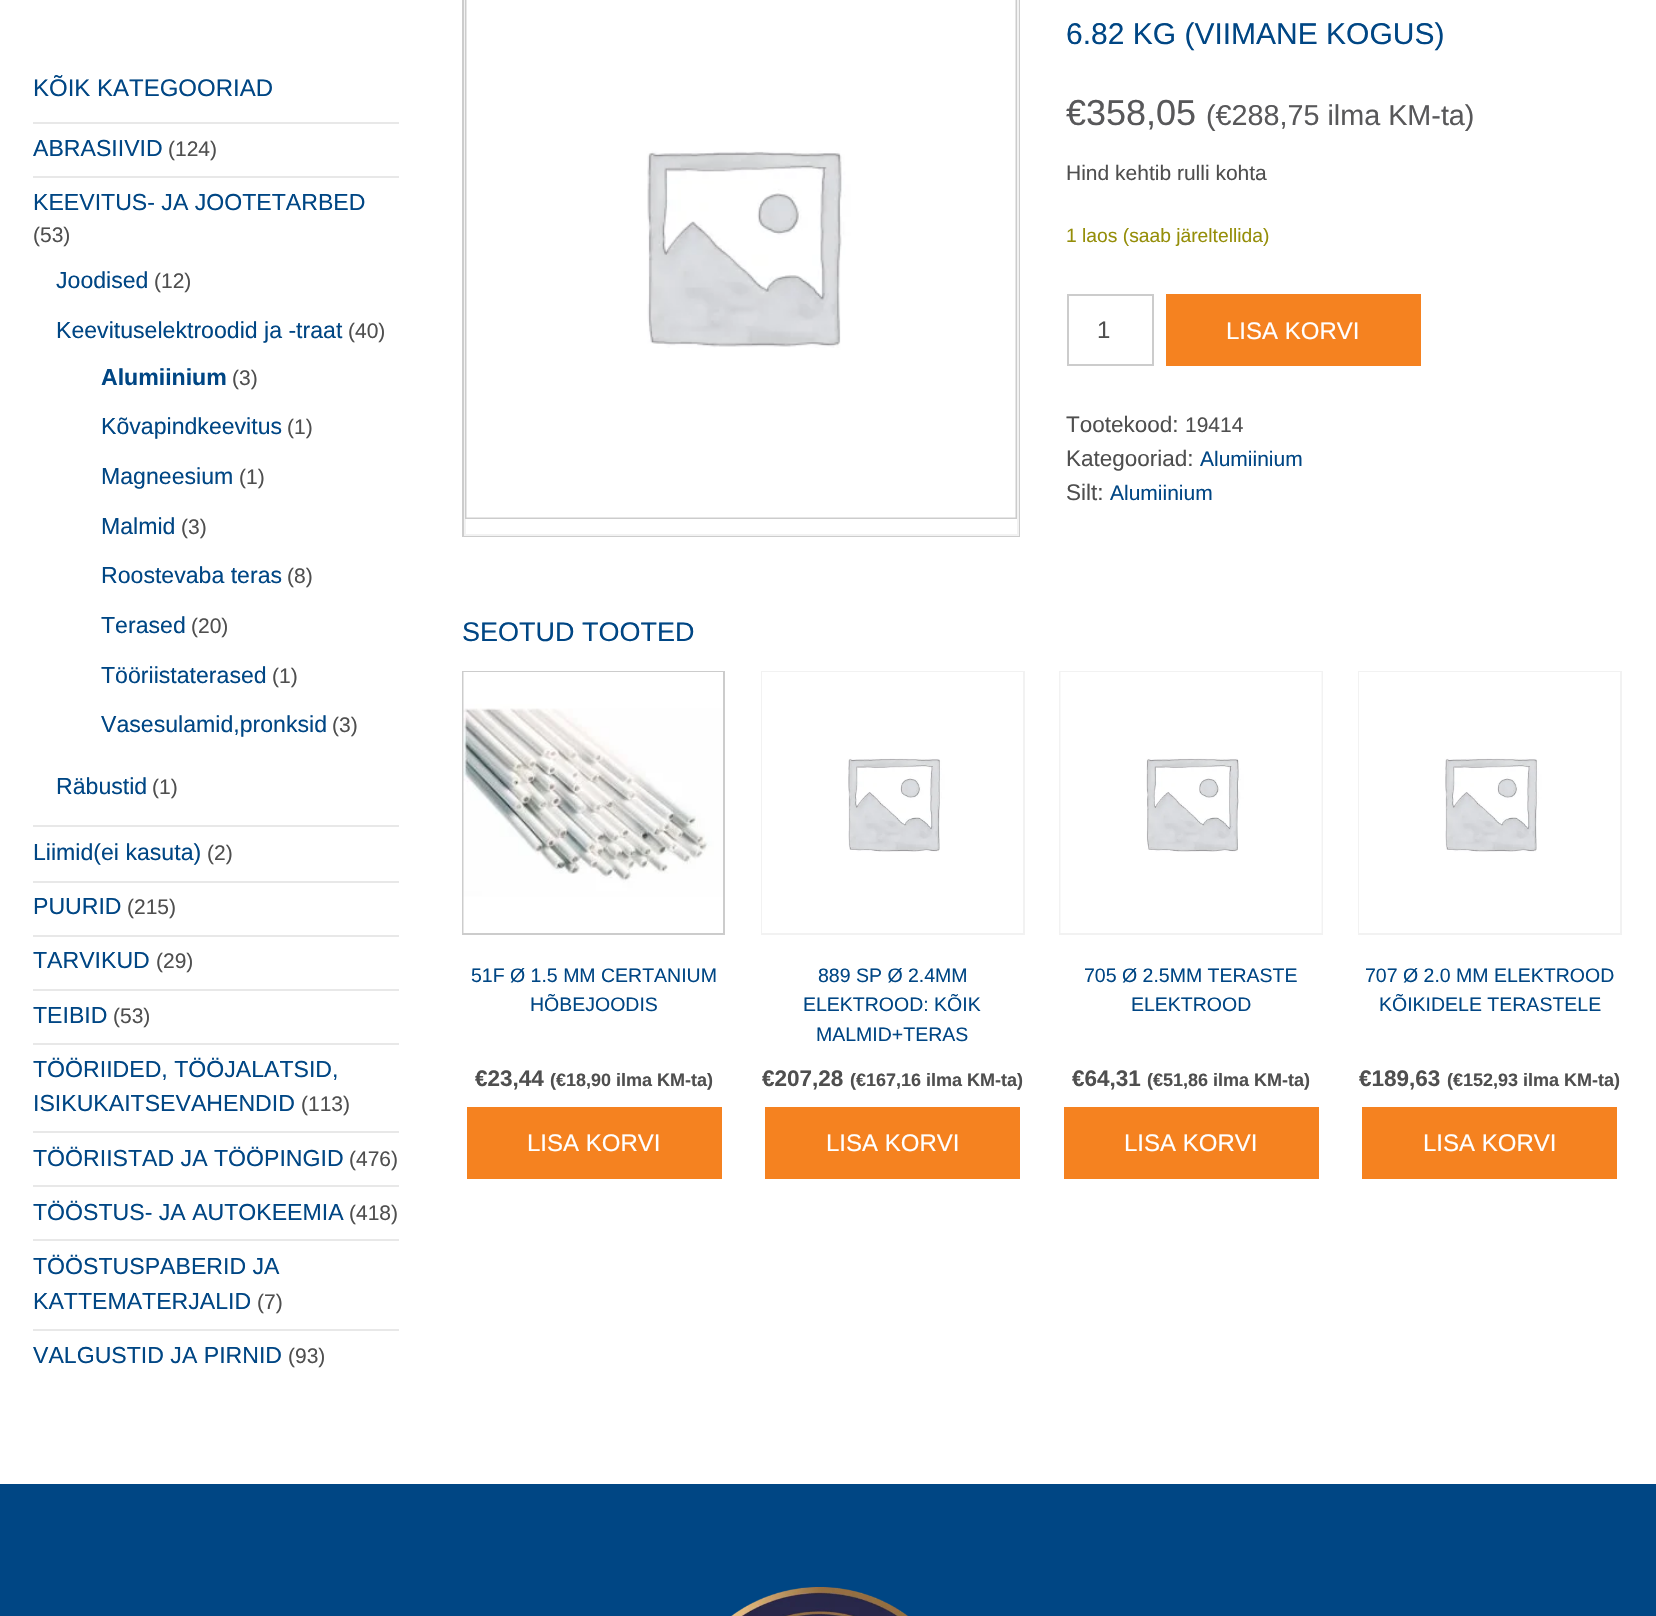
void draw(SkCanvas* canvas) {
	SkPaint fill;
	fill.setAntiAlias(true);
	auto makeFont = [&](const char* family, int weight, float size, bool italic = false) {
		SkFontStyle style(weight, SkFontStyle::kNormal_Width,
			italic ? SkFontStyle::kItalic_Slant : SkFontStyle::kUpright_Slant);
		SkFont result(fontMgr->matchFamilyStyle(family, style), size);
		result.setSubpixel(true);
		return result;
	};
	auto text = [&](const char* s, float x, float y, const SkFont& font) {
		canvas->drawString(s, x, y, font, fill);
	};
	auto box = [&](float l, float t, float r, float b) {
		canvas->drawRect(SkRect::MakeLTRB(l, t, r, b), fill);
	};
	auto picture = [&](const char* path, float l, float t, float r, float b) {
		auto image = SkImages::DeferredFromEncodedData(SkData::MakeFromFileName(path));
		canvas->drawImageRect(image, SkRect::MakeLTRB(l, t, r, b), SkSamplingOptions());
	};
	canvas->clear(0xFFFFFFFF);
	fill.setColor(0xFFE8E8E8);
	box(33, 122, 399, 124);
	box(33, 176, 399, 178);
	box(33, 825, 399, 827);
	box(33, 881, 399, 883);
	box(33, 935, 399, 937);
	box(33, 989, 399, 991);
	box(33, 1043, 399, 1045);
	box(33, 1131, 399, 1133);
	box(33, 1185, 399, 1187);
	box(33, 1239, 399, 1241);
	box(33, 1329, 399, 1331);
	fill.setStyle(SkPaint::kStroke_Style);
	fill.setStrokeWidth(2);
	fill.setColor(0xFFCCCCCC);
	canvas->drawRect(SkRect::MakeLTRB(463, -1, 1019, 536), fill);
	fill.setColor(0xFFF2F2F2);
	canvas->drawRect(SkRect::MakeLTRB(465, -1, 1018, 535), fill);
	fill.setColor(0xFFCCCCCC);
	canvas->drawRect(SkRect::MakeLTRB(466, -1, 1016, 518), fill);
	picture("image0.png", 466, 0, 1016, 518);
	canvas->drawRect(SkRect::MakeLTRB(1068, 295, 1153, 365), fill);
	fill.setStyle(SkPaint::kFill_Style);
	fill.setColor(0xFFF58220);
	box(1166, 294, 1421, 366);
	fill.setStyle(SkPaint::kStroke_Style);
	fill.setColor(0xFFCCCCCC);
	canvas->drawRect(SkRect::MakeLTRB(463, 672, 724, 934), fill);
	picture("image1.png", 463, 672, 723, 933);
	fill.setStyle(SkPaint::kFill_Style);
	fill.setColor(0xFFF58220);
	box(467, 1107, 722, 1179);
	fill.setStyle(SkPaint::kStroke_Style);
	fill.setColor(0xFFF2F2F2);
	canvas->drawRect(SkRect::MakeLTRB(762, 672, 1024, 934), fill);
	picture("image2.png", 762, 672, 1023, 933);
	fill.setStyle(SkPaint::kFill_Style);
	fill.setColor(0xFFF58220);
	box(765, 1107, 1020, 1179);
	fill.setStyle(SkPaint::kStroke_Style);
	fill.setColor(0xFFF2F2F2);
	canvas->drawRect(SkRect::MakeLTRB(1060, 672, 1322, 934), fill);
	picture("image3.png", 1060, 672, 1322, 933);
	fill.setStyle(SkPaint::kFill_Style);
	fill.setColor(0xFFF58220);
	box(1064, 1107, 1319, 1179);
	fill.setStyle(SkPaint::kStroke_Style);
	fill.setColor(0xFFF2F2F2);
	canvas->drawRect(SkRect::MakeLTRB(1359, 672, 1621, 934), fill);
	picture("image2.png", 1359, 672, 1620, 933);
	fill.setStyle(SkPaint::kFill_Style);
	fill.setColor(0xFFF58220);
	box(1362, 1107, 1617, 1179);
	fill.setColor(0xFF004684);
	box(0, 1484, 1656, 1616);
	picture("image4.png", 731, 1587, 909, 1616);
	auto font1 = makeFont("Arimo", 400, 24);
	text("KÕIK KATEGOORIAD", 33, 96, font1);
	auto font2 = makeFont("Arimo", 400, 23.1f);
	text("ABRASIIVID", 33, 156, font2);
	auto font3 = makeFont("Arimo", 400, 21);
	fill.setColor(0xFF4F4F4F);
	text("(124)", 168, 156, font3);
	fill.setColor(0xFF004684);
	text("KEEVITUS- JA JOOTETARBED", 33, 210, font2);
	fill.setColor(0xFF4F4F4F);
	text("(53)", 33, 242, font3);
	fill.setColor(0xFF004684);
	text("Joodised", 56, 288, font2);
	fill.setColor(0xFF4F4F4F);
	text("(12)", 154, 288, font3);
	fill.setColor(0xFF004684);
	text("Keevituselektroodid ja -traat", 56, 338, font2);
	fill.setColor(0xFF4F4F4F);
	text("(40)", 348, 338, font3);
	auto font4 = makeFont("Arimo", 700, 23.1f);
	fill.setColor(0xFF004684);
	text("Alumiinium", 101, 385, font4);
	fill.setColor(0xFF4F4F4F);
	text("(3)", 232, 385, font3);
	fill.setColor(0xFF004684);
	text("Kõvapindkeevitus", 101, 434, font2);
	fill.setColor(0xFF4F4F4F);
	text("(1)", 287, 434, font3);
	fill.setColor(0xFF004684);
	text("Magneesium", 101, 484, font2);
	fill.setColor(0xFF4F4F4F);
	text("(1)", 239, 484, font3);
	fill.setColor(0xFF004684);
	text("Malmid", 101, 534, font2);
	fill.setColor(0xFF4F4F4F);
	text("(3)", 181, 534, font3);
	fill.setColor(0xFF004684);
	text("Roostevaba teras", 101, 583, font2);
	fill.setColor(0xFF4F4F4F);
	text("(8)", 287, 583, font3);
	fill.setColor(0xFF004684);
	text("Terased", 101, 633, font2);
	fill.setColor(0xFF4F4F4F);
	text("(20)", 191, 633, font3);
	fill.setColor(0xFF004684);
	text("Tööriistaterased", 101, 683, font2);
	fill.setColor(0xFF4F4F4F);
	text("(1)", 272, 683, font3);
	fill.setColor(0xFF004684);
	text("Vasesulamid,pronksid", 101, 732, font2);
	fill.setColor(0xFF4F4F4F);
	text("(3)", 332, 732, font3);
	fill.setColor(0xFF004684);
	text("Räbustid", 56, 794, font2);
	fill.setColor(0xFF4F4F4F);
	text("(1)", 152, 794, font3);
	fill.setColor(0xFF004684);
	text("Liimid(ei kasuta)", 33, 860, font2);
	fill.setColor(0xFF4F4F4F);
	text("(2)", 207, 860, font3);
	fill.setColor(0xFF004684);
	text("PUURID", 33, 914, font2);
	fill.setColor(0xFF4F4F4F);
	text("(215)", 127, 914, font3);
	fill.setColor(0xFF004684);
	text("TARVIKUD", 33, 968, font2);
	fill.setColor(0xFF4F4F4F);
	text("(29)", 156, 968, font3);
	fill.setColor(0xFF004684);
	text("TEIBID", 33, 1023, font2);
	fill.setColor(0xFF4F4F4F);
	text("(53)", 113, 1023, font3);
	fill.setColor(0xFF004684);
	text("TÖÖRIIDED, TÖÖJALATSID,", 33, 1077, font2);
	text("ISIKUKAITSEVAHENDID", 33, 1111, font2);
	fill.setColor(0xFF4F4F4F);
	text("(113)", 301, 1111, font3);
	fill.setColor(0xFF004684);
	text("TÖÖRIISTAD JA TÖÖPINGID", 33, 1166, font2);
	fill.setColor(0xFF4F4F4F);
	text("(476)", 349, 1166, font3);
	fill.setColor(0xFF004684);
	text("TÖÖSTUS- JA AUTOKEEMIA", 33, 1220, font2);
	fill.setColor(0xFF4F4F4F);
	text("(418)", 349, 1220, font3);
	fill.setColor(0xFF004684);
	text("TÖÖSTUSPABERID JA", 33, 1274, font2);
	text("KATTEMATERJALID", 33, 1309, font2);
	fill.setColor(0xFF4F4F4F);
	text("(7)", 257, 1309, font3);
	fill.setColor(0xFF004684);
	text("VALGUSTID JA PIRNID", 33, 1363, font2);
	fill.setColor(0xFF4F4F4F);
	text("(93)", 288, 1363, font3);
	auto font5 = makeFont("Arimo", 400, 30);
	fill.setColor(0xFF004684);
	text("6.82 KG (VIIMANE KOGUS)", 1066, 44, font5);
	auto font6 = makeFont("Arimo", 400, 36);
	fill.setColor(0xFF58585A);
	text("€358,05", 1066, 125, font6);
	auto font7 = makeFont("Arimo", 400, 28.75f);
	text("(€288,75 ilma KM-ta)", 1206, 125, font7);
	fill.setColor(0xFF4F4F4F);
	text("Hind kehtib rulli kohta", 1066, 180, font3);
	auto font8 = makeFont("Arimo", 400, 19.25f);
	fill.setColor(0xFF958E09);
	text("1 laos (saab järeltellida)", 1066, 242, font8);
	fill.setColor(0xFF4F4F4F);
	text("1", 1097, 338, font1);
	fill.setColor(0xFFFFFFFF);
	text("LISA KORVI", 1226, 339, font1);
	auto font9 = makeFont("Arimo", 400, 22.5f);
	fill.setColor(0xFF4F4F4F);
	text("Tootekood:", 1066, 432, font9);
	text("19414", 1185, 432, font3);
	text("Kategooriad:", 1066, 466, font9);
	fill.setColor(0xFF004684);
	text("Alumiinium", 1200, 466, font3);
	fill.setColor(0xFF4F4F4F);
	text("Silt:", 1066, 500, font9);
	fill.setColor(0xFF004684);
	text("Alumiinium", 1110, 500, font3);
	auto font10 = makeFont("Arimo", 400, 27);
	text("SEOTUD TOOTED", 462, 641, font10);
	auto font11 = makeFont("Arimo", 400, 19.5f);
	text("51F Ø 1.5 MM CERTANIUM", 471, 982, font11);
	text("HÕBEJOODIS", 530, 1011, font11);
	auto font12 = makeFont("Arimo", 700, 22.5f);
	fill.setColor(0xFF4F4F4F);
	text("€23,44", 475, 1086, font12);
	auto font13 = makeFont("Arimo", 700, 18);
	text("(€18,90 ilma KM-ta)", 550, 1086, font13);
	fill.setColor(0xFFFFFFFF);
	text("LISA KORVI", 527, 1151, font1);
	fill.setColor(0xFF004684);
	text("889 SP Ø 2.4MM", 818, 982, font11);
	text("ELEKTROOD: KÕIK", 803, 1011, font11);
	text("MALMID+TERAS", 816, 1041, font11);
	fill.setColor(0xFF4F4F4F);
	text("€207,28", 762, 1086, font12);
	text("(€167,16 ilma KM-ta)", 850, 1086, font13);
	fill.setColor(0xFFFFFFFF);
	text("LISA KORVI", 826, 1151, font1);
	fill.setColor(0xFF004684);
	text("705 Ø 2.5MM TERASTE", 1084, 982, font11);
	text("ELEKTROOD", 1131, 1011, font11);
	fill.setColor(0xFF4F4F4F);
	text("€64,31", 1072, 1086, font12);
	text("(€51,86 ilma KM-ta)", 1147, 1086, font13);
	fill.setColor(0xFFFFFFFF);
	text("LISA KORVI", 1124, 1151, font1);
	fill.setColor(0xFF004684);
	text("707 Ø 2.0 MM ELEKTROOD", 1365, 982, font11);
	text("KÕIKIDELE TERASTELE", 1379, 1011, font11);
	fill.setColor(0xFF4F4F4F);
	text("€189,63", 1359, 1086, font12);
	text("(€152,93 ilma KM-ta)", 1447, 1086, font13);
	fill.setColor(0xFFFFFFFF);
	text("LISA KORVI", 1423, 1151, font1);
}
